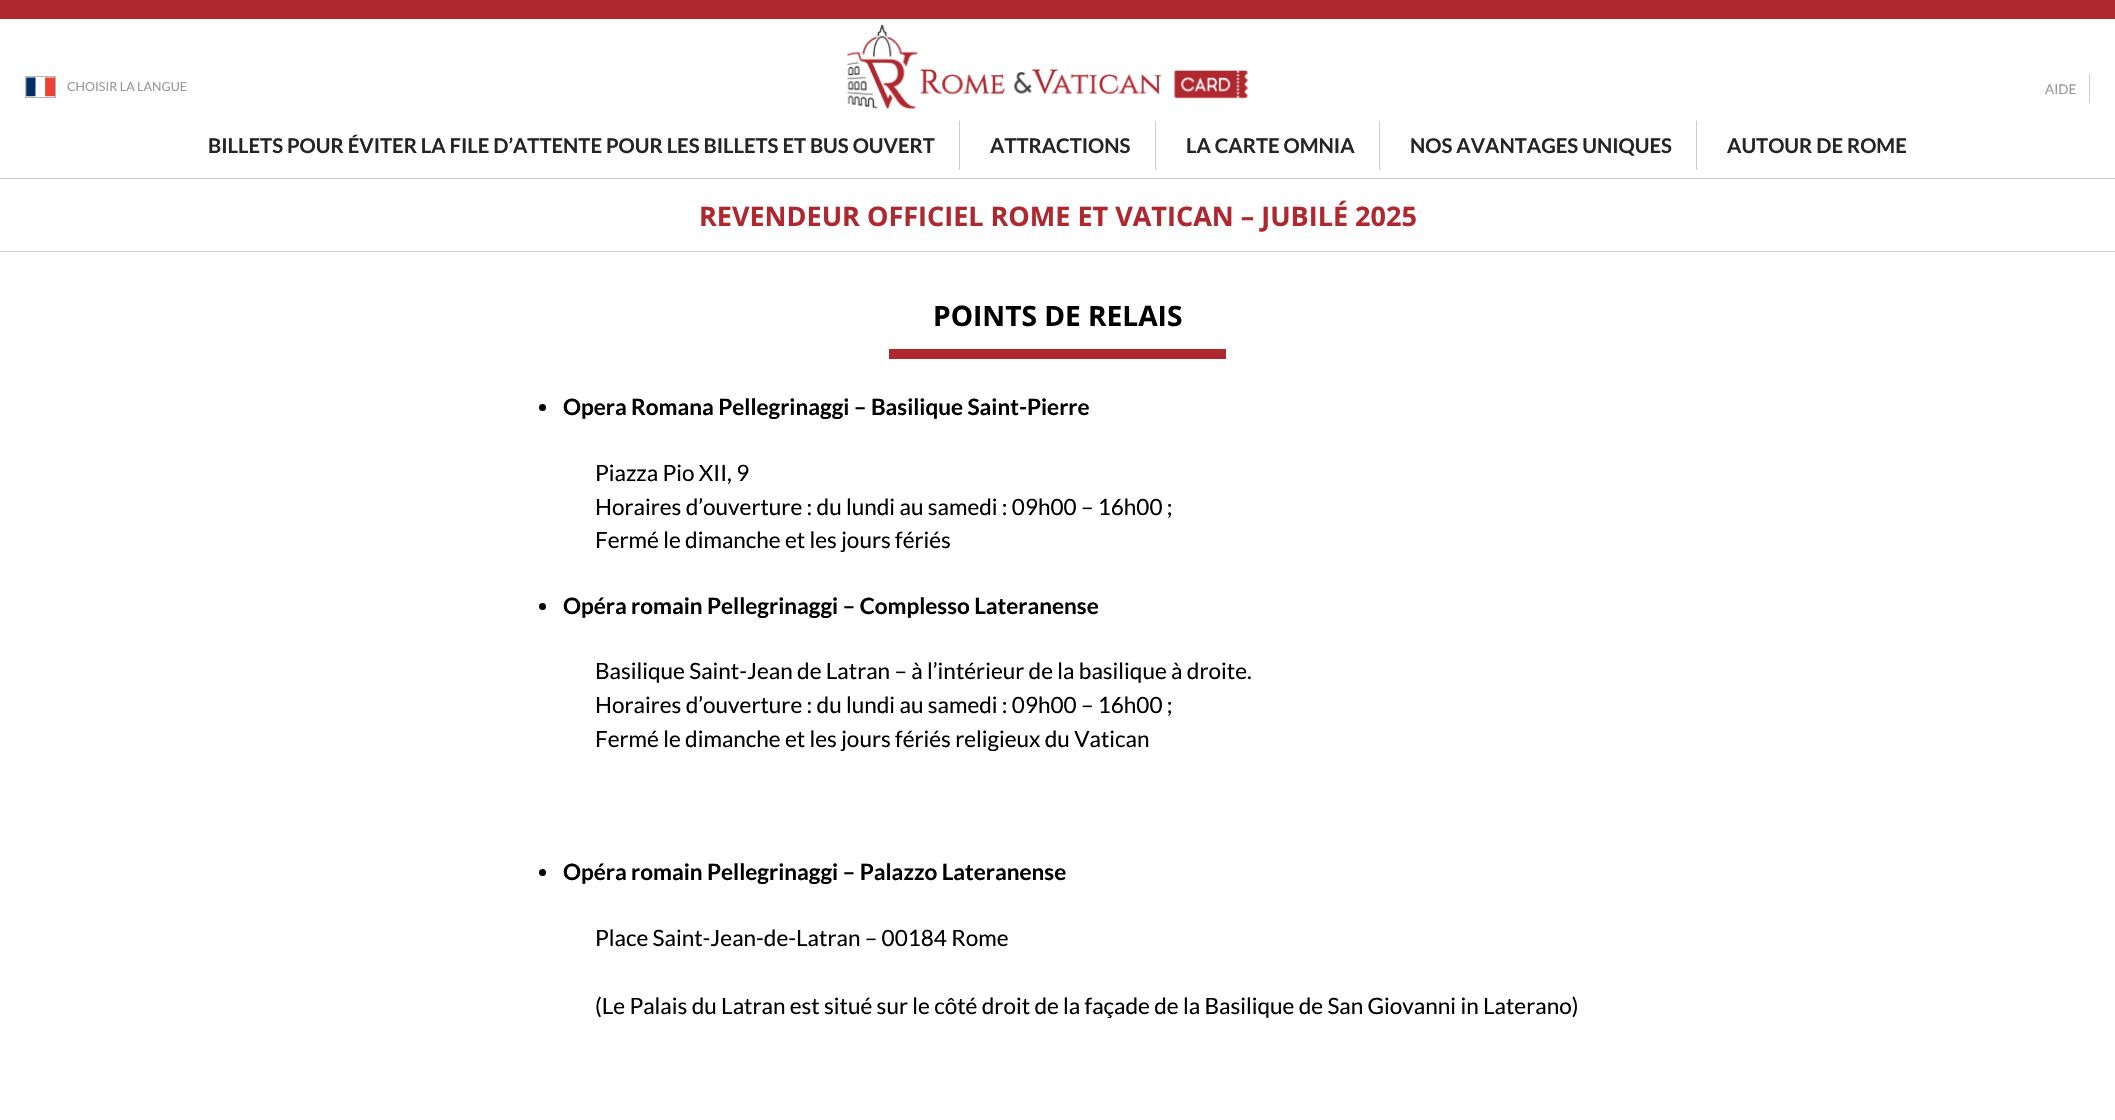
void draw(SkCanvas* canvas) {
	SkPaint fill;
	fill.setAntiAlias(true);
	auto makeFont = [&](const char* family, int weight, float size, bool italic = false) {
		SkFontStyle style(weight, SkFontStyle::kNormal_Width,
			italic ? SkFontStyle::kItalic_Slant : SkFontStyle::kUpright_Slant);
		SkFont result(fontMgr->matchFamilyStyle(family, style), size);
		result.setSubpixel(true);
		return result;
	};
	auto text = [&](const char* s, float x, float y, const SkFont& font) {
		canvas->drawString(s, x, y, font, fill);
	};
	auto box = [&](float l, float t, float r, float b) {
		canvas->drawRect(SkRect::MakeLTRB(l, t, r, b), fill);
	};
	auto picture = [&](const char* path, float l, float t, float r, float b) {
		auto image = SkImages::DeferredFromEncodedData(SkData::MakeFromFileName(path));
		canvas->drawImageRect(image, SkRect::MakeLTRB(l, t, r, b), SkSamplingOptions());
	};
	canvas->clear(0xFFFFFFFF);
	fill.setColor(0xFFAF272F);
	box(0, 0, 2115, 19);
	fill.setStyle(SkPaint::kStroke_Style);
	fill.setStrokeWidth(1);
	fill.setColor(0xFFB6B6B6);
	canvas->drawRect(SkRect::MakeLTRB(25.5f, 76.5f, 55.5f, 97.5f), fill);
	picture("image0.png", 26, 77, 55, 97);
	picture("image1.png", 847, 25, 1248, 109);
	fill.setStyle(SkPaint::kFill_Style);
	fill.setColor(0xFFCCCCCC);
	box(2089, 74, 2090, 103);
	box(959, 121, 960, 170);
	box(1155, 121, 1156, 170);
	box(1379, 121, 1380, 170);
	box(1696, 121, 1697, 170);
	box(0, 178, 2115, 179);
	box(0, 251, 2115, 252);
	fill.setColor(0xFFAF272F);
	box(889, 349, 1226, 359);
	fill.setColor(0xFF000000);
	canvas->drawCircle(542.5f, 407.5f, 3.5f, fill);
	canvas->drawCircle(542.5f, 606.5f, 3.5f, fill);
	canvas->drawCircle(542.5f, 872.5f, 3.5f, fill);
	auto font1 = makeFont("Lato", 400, 12.5f);
	fill.setColor(0xFF999999);
	text("CHOISIR LA LANGUE", 67, 91, font1);
	auto font2 = makeFont("Lato", 400, 13.5f);
	text("AIDE", 2045, 94, font2);
	auto font3 = makeFont("Lato", 700, 20.25f);
	fill.setColor(0xFF252525);
	text("BILLETS POUR ÉVITER LA FILE D’ATTENTE POUR LES BILLETS ET BUS OUVERT", 208, 153, font3);
	text("ATTRACTIONS", 990, 153, font3);
	text("LA CARTE OMNIA", 1186, 153, font3);
	text("NOS AVANTAGES UNIQUES", 1410, 153, font3);
	text("AUTOUR DE ROME", 1727, 153, font3);
	auto font4 = makeFont("Open Sans", 700, 27);
	fill.setColor(0xFFAF272F);
	text("REVENDEUR OFFICIEL ROME ET VATICAN – JUBILÉ 2025", 699, 226, font4);
	auto font5 = makeFont("Open Sans", 700, 28.1f);
	fill.setColor(0xFF000000);
	text("POINTS DE RELAIS", 933, 326, font5);
	auto font6 = makeFont("Lato", 700, 22.5f);
	text("Opera Romana Pellegrinaggi – Basilique Saint-Pierre", 563, 415, font6);
	auto font7 = makeFont("Lato", 400, 22.5f);
	text("Piazza Pio XII, 9", 595, 481, font7);
	text("Horaires d’ouverture : du lundi au samedi : 09h00 – 16h00 ;", 595, 515, font7);
	text("Fermé le dimanche et les jours fériés", 595, 548, font7);
	text("Opéra romain Pellegrinaggi – Complesso Lateranense", 563, 614, font6);
	text("Basilique Saint-Jean de Latran – à l’intérieur de la basilique à droite.", 595, 679, font7);
	text("Horaires d’ouverture : du lundi au samedi : 09h00 – 16h00 ;", 595, 713, font7);
	text("Fermé le dimanche et les jours fériés religieux du Vatican", 595, 747, font7);
	text("Opéra romain Pellegrinaggi – Palazzo Lateranense", 563, 880, font6);
	text("Place Saint-Jean-de-Latran – 00184 Rome", 595, 946, font7);
	text("(Le Palais du Latran est situé sur le côté droit de la façade de la Basilique de San Giovanni in Laterano)", 595, 1014, font7);
}
